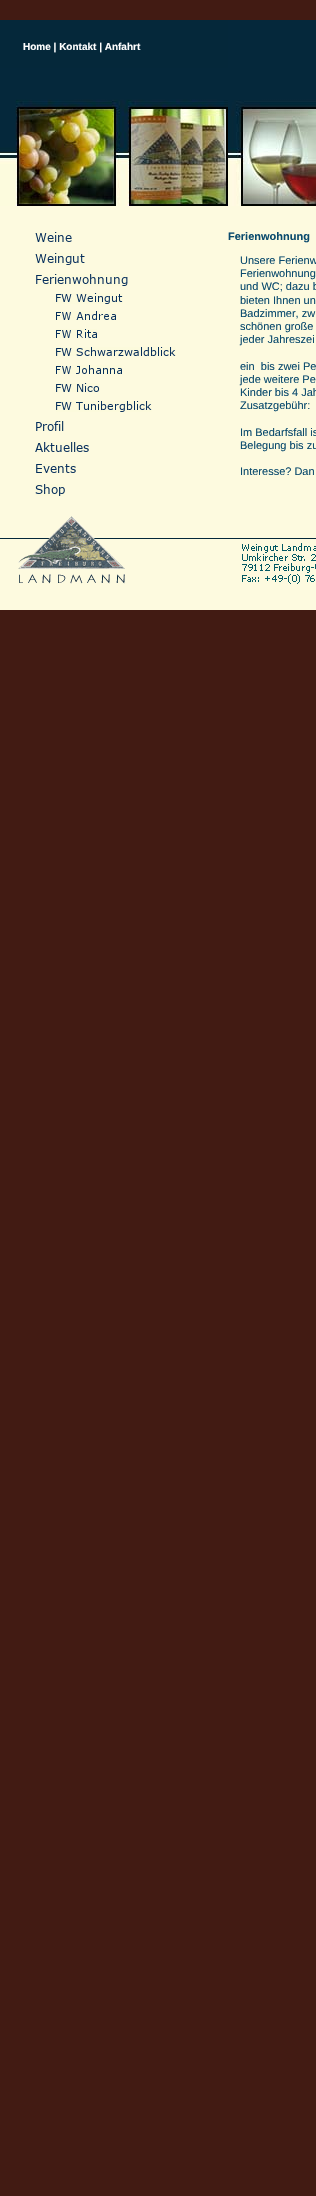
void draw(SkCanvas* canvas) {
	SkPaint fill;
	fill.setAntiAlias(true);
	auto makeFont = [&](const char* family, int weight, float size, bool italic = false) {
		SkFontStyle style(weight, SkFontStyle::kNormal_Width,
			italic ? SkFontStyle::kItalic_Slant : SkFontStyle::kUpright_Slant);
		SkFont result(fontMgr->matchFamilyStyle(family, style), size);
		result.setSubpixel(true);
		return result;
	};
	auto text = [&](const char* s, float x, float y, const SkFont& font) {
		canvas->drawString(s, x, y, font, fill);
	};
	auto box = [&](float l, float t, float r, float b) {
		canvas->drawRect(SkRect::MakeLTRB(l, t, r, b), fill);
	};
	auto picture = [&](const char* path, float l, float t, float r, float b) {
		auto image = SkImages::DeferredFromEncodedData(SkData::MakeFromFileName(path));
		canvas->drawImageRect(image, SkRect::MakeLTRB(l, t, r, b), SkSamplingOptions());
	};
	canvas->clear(0xFF421B13);
	fill.setColor(0xFF05283A);
	box(0, 20, 228, 68);
	picture("image0.png", 0, 68, 228, 206);
	fill.setColor(0xFFFDFADF);
	box(0, 206, 228, 510);
	picture("image1.png", 35, 232, 72, 242);
	picture("image2.png", 35, 253, 85, 265);
	picture("image3.png", 36, 274, 128, 286);
	picture("image4.png", 56, 293, 123, 304);
	picture("image5.png", 56, 311, 116, 320);
	picture("image6.png", 56, 329, 97, 338);
	picture("image7.png", 56, 347, 176, 356);
	picture("image8.png", 56, 365, 122, 374);
	picture("image9.png", 56, 383, 100, 392);
	picture("image10.png", 56, 401, 152, 412);
	picture("image11.png", 36, 421, 64, 431);
	picture("image12.png", 35, 442, 89, 452);
	picture("image13.png", 36, 464, 76, 473);
	picture("image14.png", 35, 484, 65, 496);
	picture("image15.png", 0, 510, 228, 610);
	picture("image16.png", 228, 20, 316, 206);
	box(228, 206, 316, 530);
	picture("image17.png", 228, 530, 316, 610);
	auto font1 = makeFont("Liberation Sans", 700, 10);
	fill.setColor(0xFFFFFFFF);
	text("Home | Kontakt | Anfahrt", 23, 50, font1);
	auto font2 = makeFont("Liberation Sans", 700, 11);
	fill.setColor(0xFF0A4A6D);
	text("Ferienwohnung", 228, 240, font2);
	auto font3 = makeFont("Liberation Sans", 400, 11);
	text("Unsere Ferienw", 240, 264, font3);
	text("Ferienwohnung", 240, 277, font3);
	text("und WC; dazu b", 240, 290, font3);
	text("bieten Ihnen un", 240, 304, font3);
	text("Badzimmer, zw", 240, 317, font3);
	text("schönen große", 240, 330, font3);
	text("jeder Jahreszei", 240, 343, font3);
	text("ein  bis zwei Pe", 240, 370, font3);
	text("jede weitere Pe", 240, 383, font3);
	text("Kinder bis 4 Jah", 240, 396, font3);
	text("Zusatzgebühr:", 240, 409, font3);
	text("Im Bedarfsfall is", 240, 436, font3);
	text("Belegung bis zu", 240, 449, font3);
	text("Interesse? Dan", 240, 475, font3);
}
